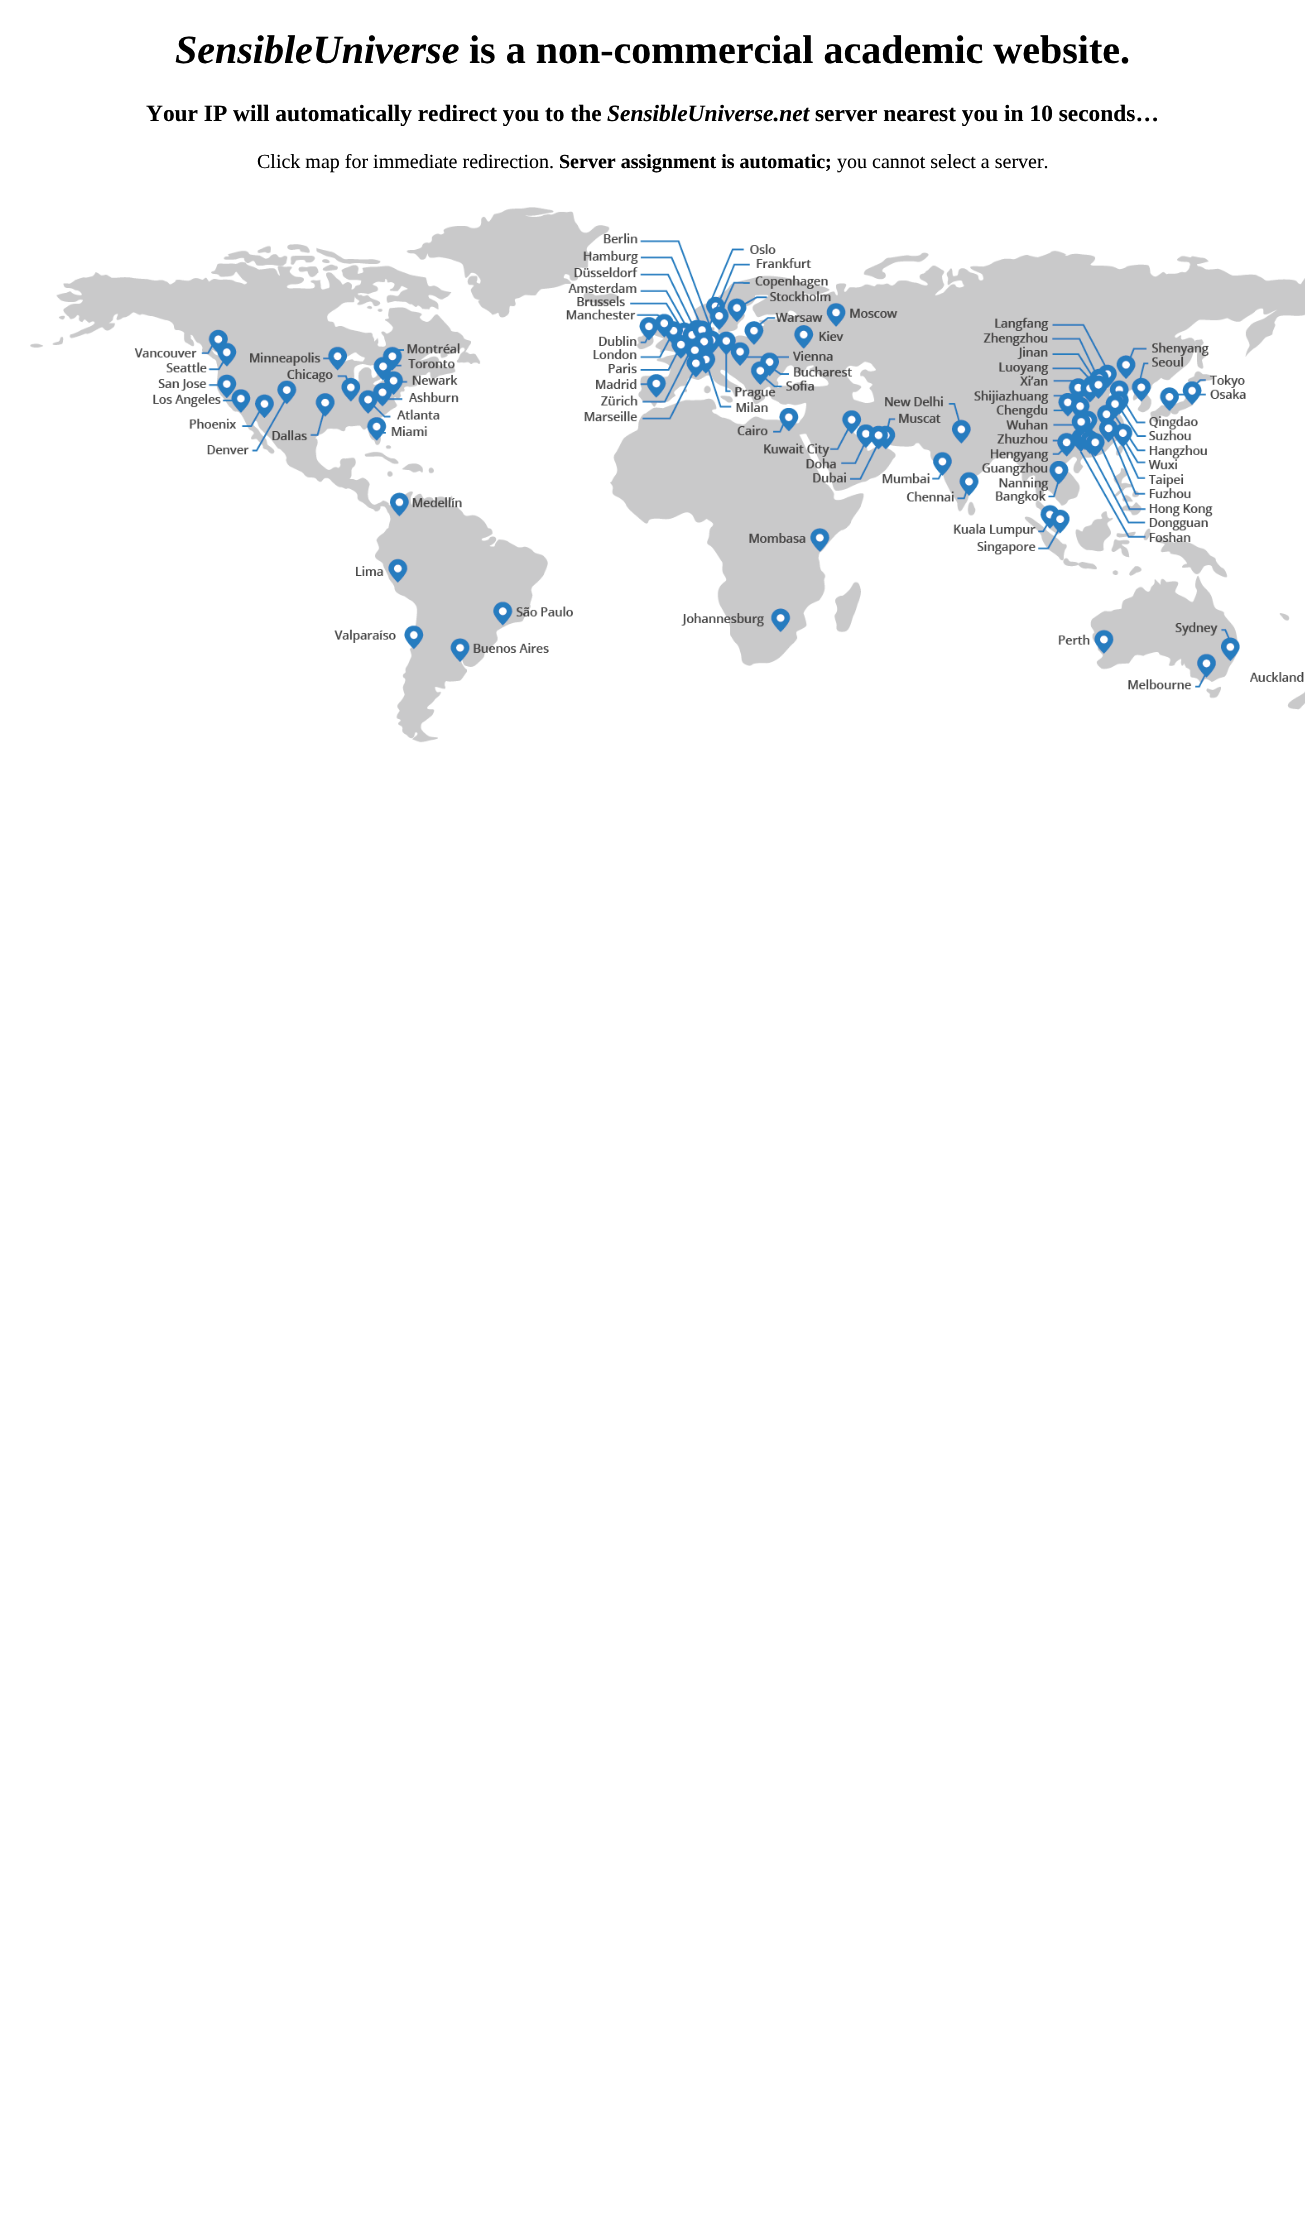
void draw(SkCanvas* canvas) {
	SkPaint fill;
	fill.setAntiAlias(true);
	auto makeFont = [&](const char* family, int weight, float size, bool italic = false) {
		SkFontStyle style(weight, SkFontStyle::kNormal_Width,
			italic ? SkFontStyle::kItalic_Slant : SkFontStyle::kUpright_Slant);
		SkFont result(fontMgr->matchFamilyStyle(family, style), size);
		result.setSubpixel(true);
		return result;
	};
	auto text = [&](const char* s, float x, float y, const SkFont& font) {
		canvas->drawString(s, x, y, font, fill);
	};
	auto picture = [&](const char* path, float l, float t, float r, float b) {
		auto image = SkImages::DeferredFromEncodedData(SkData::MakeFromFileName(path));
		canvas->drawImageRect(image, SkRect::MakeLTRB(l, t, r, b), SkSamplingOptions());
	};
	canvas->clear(0xFFFFFFFF);
	picture("image0.png", 30, 207, 1305, 743);
	auto font1 = makeFont("Liberation Serif", 700, 40, true);
	fill.setColor(0xFF000000);
	text("SensibleUniverse", 175, 63, font1);
	auto font2 = makeFont("Liberation Serif", 700, 40);
	text("is a non-commercial academic website.", 469, 63, font2);
	auto font3 = makeFont("Liberation Serif", 700, 23.4f);
	text("Your IP will automatically redirect you to the", 146, 121, font3);
	auto font4 = makeFont("Liberation Serif", 700, 23.4f, true);
	text("SensibleUniverse.net", 607, 121, font4);
	text("server nearest you in 10 seconds…", 815, 121, font3);
	auto font5 = makeFont("Liberation Serif", 400, 20);
	text("Click map for immediate redirection.", 257, 168, font5);
	auto font6 = makeFont("Liberation Serif", 700, 20);
	text("Server assignment is automatic;", 559, 168, font6);
	text("you cannot select a server.", 837, 168, font5);
}
